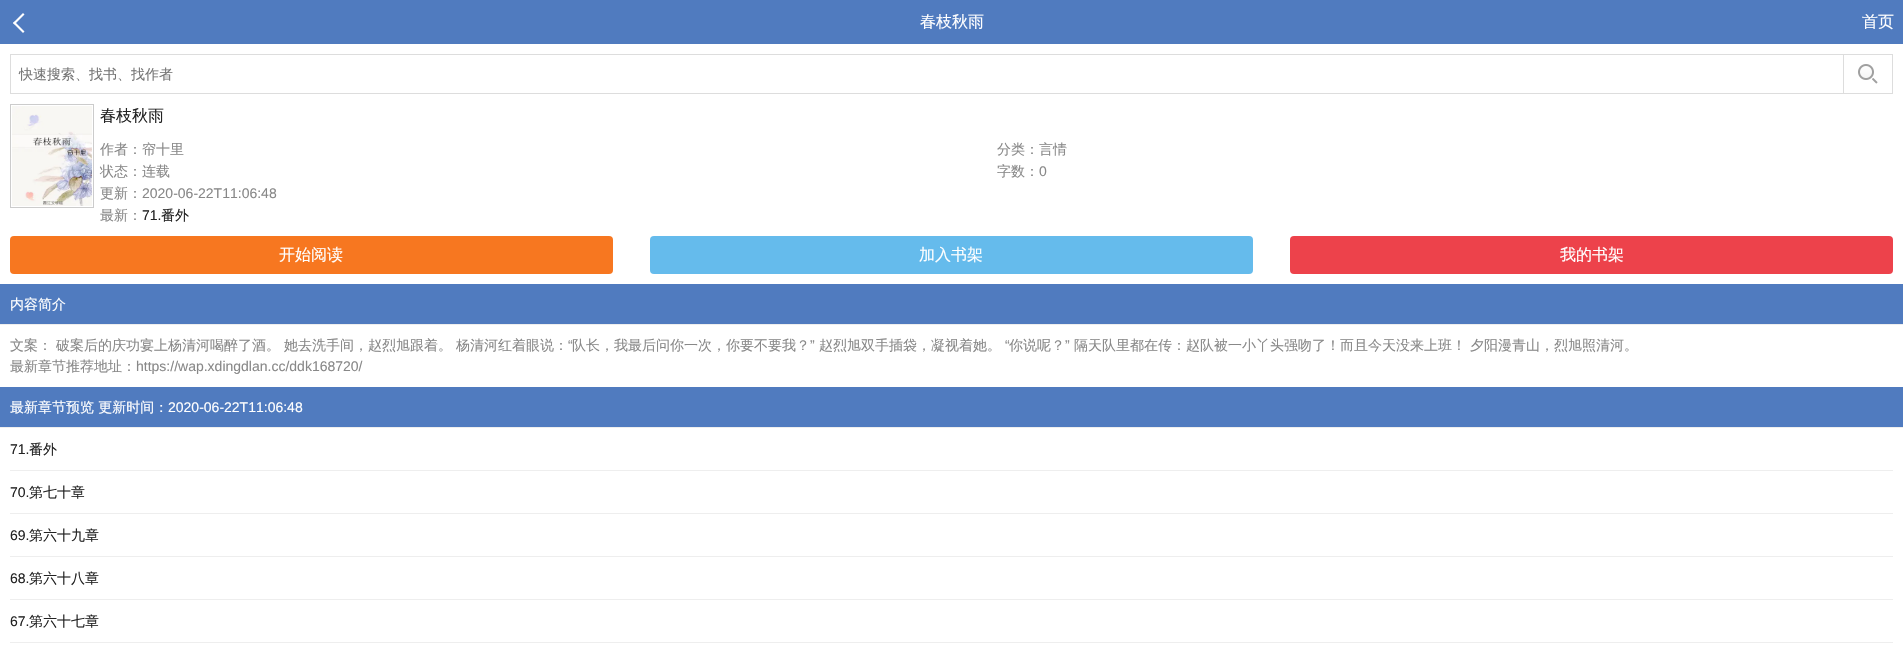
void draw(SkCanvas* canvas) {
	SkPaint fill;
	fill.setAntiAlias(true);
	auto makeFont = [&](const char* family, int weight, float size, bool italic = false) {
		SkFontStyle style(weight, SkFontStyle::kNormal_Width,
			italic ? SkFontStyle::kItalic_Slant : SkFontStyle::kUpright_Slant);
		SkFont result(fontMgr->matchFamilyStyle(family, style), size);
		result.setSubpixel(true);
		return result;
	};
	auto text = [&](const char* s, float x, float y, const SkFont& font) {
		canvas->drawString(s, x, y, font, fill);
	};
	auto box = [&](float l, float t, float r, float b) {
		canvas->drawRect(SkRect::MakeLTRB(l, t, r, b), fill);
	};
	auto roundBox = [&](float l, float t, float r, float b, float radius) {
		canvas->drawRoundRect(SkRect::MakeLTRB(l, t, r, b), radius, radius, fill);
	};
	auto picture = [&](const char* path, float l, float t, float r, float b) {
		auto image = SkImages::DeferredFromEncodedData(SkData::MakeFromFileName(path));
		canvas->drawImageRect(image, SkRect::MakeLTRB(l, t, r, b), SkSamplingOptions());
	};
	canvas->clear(0xFFFFFFFF);
	fill.setColor(0xFF507BBF);
	box(0, 0, 1903, 44);
	fill.setColor(0xFFFFFFFF);
	canvas->drawPath(SkPathBuilder().moveTo(13, 23).lineTo(23, 13).lineTo(24.5f, 14.5f).lineTo(14.5f, 24.5f).close().detach(), fill);
	canvas->drawPath(SkPathBuilder().moveTo(13, 23).lineTo(14.5f, 21.5f).lineTo(24.5f, 31.5f).lineTo(23, 33).close().detach(), fill);
	fill.setColor(0xFFDDDDDD);
	canvas->drawPath(SkPathBuilder().moveTo(10, 54).lineTo(1893, 54).lineTo(1843, 55).lineTo(11, 55).close().detach(), fill);
	fill.setColor(0xFFFFFFFF);
	canvas->drawPath(SkPathBuilder().moveTo(1893, 54).lineTo(1893, 94).lineTo(1843, 93).lineTo(1843, 55).close().detach(), fill);
	fill.setColor(0xFFDDDDDD);
	canvas->drawPath(SkPathBuilder().moveTo(1893, 94).lineTo(10, 94).lineTo(11, 93).lineTo(1843, 93).close().detach(), fill);
	box(10, 54, 11, 94);
	picture("image0.png", 1858, 64, 1878, 84);
	fill.setStyle(SkPaint::kStroke_Style);
	fill.setStrokeWidth(1);
	canvas->drawRect(SkRect::MakeLTRB(1843.5f, 54.5f, 1892.5f, 93.5f), fill);
	fill.setColor(0xFFCCCCCC);
	canvas->drawRect(SkRect::MakeLTRB(10.5f, 104.5f, 93.5f, 207.5f), fill);
	picture("image1.png", 12, 106, 92, 206);
	fill.setStyle(SkPaint::kFill_Style);
	fill.setColor(0xFFF77720);
	roundBox(10, 236, 613, 274, 4);
	fill.setColor(0xFF65BBEC);
	roundBox(650, 236, 1253, 274, 4);
	fill.setColor(0xFFED424B);
	roundBox(1290, 236, 1893, 274, 4);
	fill.setColor(0xFF507BBF);
	box(0, 284, 1903, 324);
	fill.setColor(0xFFEEEEEE);
	box(0, 324, 1903, 325);
	fill.setColor(0xFF507BBF);
	box(0, 387, 1903, 427);
	fill.setColor(0xFFEEEEEE);
	box(0, 427, 1903, 428);
	box(10, 470, 1893, 471);
	box(10, 513, 1893, 514);
	box(10, 556, 1893, 557);
	box(10, 599, 1893, 600);
	box(10, 642, 1893, 643);
	auto font1 = makeFont("WenQuanYi Zen Hei", 500, 16);
	fill.setColor(0xFFFFFFFF);
	text("春枝秋雨", 920, 27, font1);
	text("首页", 1862, 27, font1);
	auto font2 = makeFont("WenQuanYi Zen Hei", 500, 14);
	fill.setColor(0xFF757575);
	text("快速搜索、找书、找作者", 19, 79, font2);
	fill.setColor(0xFF222222);
	text("春枝秋雨", 100, 121, font1);
	fill.setColor(0xFF888888);
	text("作者：帘十里", 100, 154, font2);
	text("分类：言情", 997, 154, font2);
	text("状态：连载", 100, 176, font2);
	text("字数：", 997, 176, font2);
	auto font3 = makeFont("Liberation Sans", 400, 14);
	text("0", 1039, 176, font3);
	text("更新：", 100, 198, font2);
	text("2020-06-22T11:06:48", 142, 198, font3);
	text("最新：", 100, 220, font2);
	fill.setColor(0xFF222222);
	text("71.", 142, 220, font3);
	text("番外", 161, 220, font2);
	fill.setColor(0xFFFFFFFF);
	text("开始阅读", 279, 260, font1);
	text("加入书架", 919, 260, font1);
	text("我的书架", 1560, 260, font1);
	text("内容简介", 10, 309, font2);
	fill.setColor(0xFF888888);
	text("文案：", 10, 350, font2);
	text("破案后的庆功宴上杨清河喝醉了酒。", 56, 350, font2);
	text("她去洗手间，赵烈旭跟着。", 284, 350, font2);
	text("杨清河红着眼说：", 456, 350, font2);
	text("“", 568, 350, font3);
	text("队长，我最后问你一次，你要不要我？", 572, 350, font2);
	text("”", 810, 350, font3);
	text("赵烈旭双手插袋，凝视着她。", 819, 350, font2);
	text("“", 1005, 350, font3);
	text("你说呢？", 1009, 350, font2);
	text("”", 1065, 350, font3);
	text("隔天队里都在传：赵队被一小丫头强吻了！而且今天没来上班！", 1074, 350, font2);
	text("夕阳漫青山，烈旭照清河。", 1470, 350, font2);
	text("最新章节推荐地址：", 10, 371, font2);
	text("https://wap.xdingdlan.cc/ddk168720/", 136, 371, font3);
	fill.setColor(0xFFFFFFFF);
	text("最新章节预览 更新时间：", 10, 412, font2);
	text("2020-06-22T11:06:48", 168, 412, font3);
	fill.setColor(0xFF222222);
	text("71.", 10, 454, font3);
	text("番外", 29, 454, font2);
	text("70.", 10, 497, font3);
	text("第七十章", 29, 497, font2);
	text("69.", 10, 540, font3);
	text("第六十九章", 29, 540, font2);
	text("68.", 10, 583, font3);
	text("第六十八章", 29, 583, font2);
	text("67.", 10, 626, font3);
	text("第六十七章", 29, 626, font2);
}
